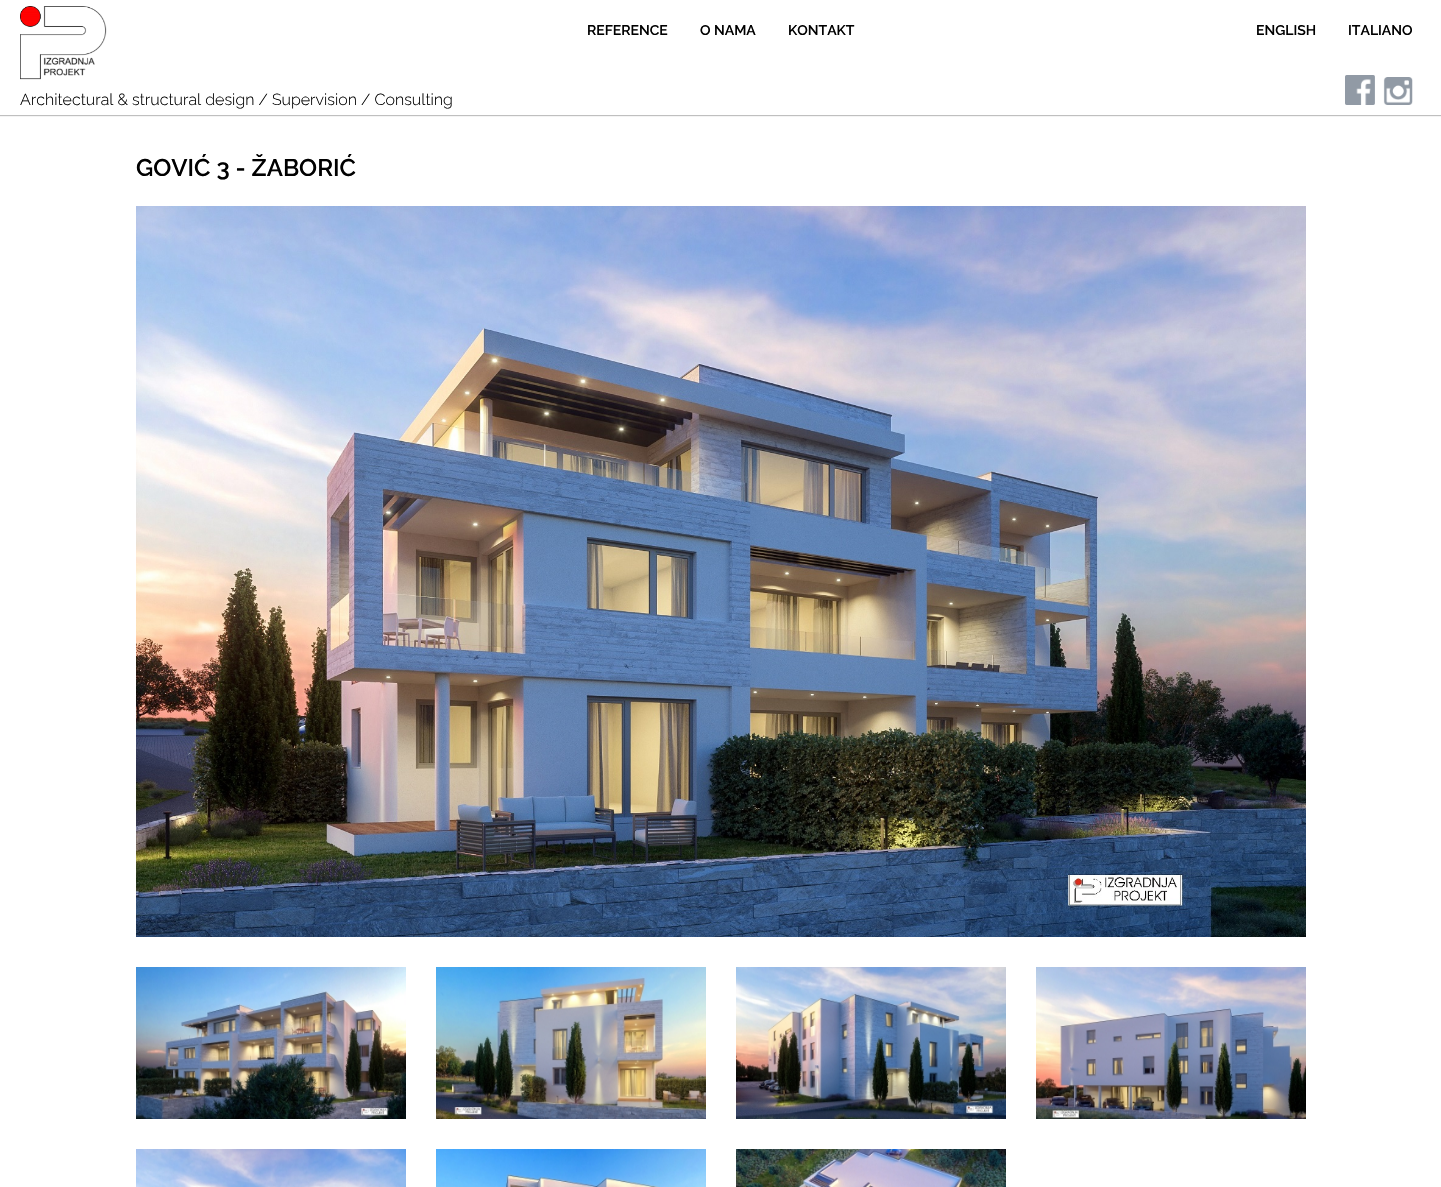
void draw(SkCanvas* canvas) {
	SkPaint fill;
	fill.setAntiAlias(true);
	auto makeFont = [&](const char* family, int weight, float size, bool italic = false) {
		SkFontStyle style(weight, SkFontStyle::kNormal_Width,
			italic ? SkFontStyle::kItalic_Slant : SkFontStyle::kUpright_Slant);
		SkFont result(fontMgr->matchFamilyStyle(family, style), size);
		result.setSubpixel(true);
		return result;
	};
	auto text = [&](const char* s, float x, float y, const SkFont& font) {
		canvas->drawString(s, x, y, font, fill);
	};
	auto picture = [&](const char* path, float l, float t, float r, float b) {
		auto image = SkImages::DeferredFromEncodedData(SkData::MakeFromFileName(path));
		canvas->drawImageRect(image, SkRect::MakeLTRB(l, t, r, b), SkSamplingOptions());
	};
	canvas->clear(0xFFFFFFFF);
	canvas->save();
	canvas->clipRect(SkRect::MakeLTRB(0, 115, 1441, 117));
	fill.setColor(0x40000000);
	fill.setMaskFilter(SkMaskFilter::MakeBlur(kNormal_SkBlurStyle, 0.5f));
	canvas->drawRect(SkRect::MakeLTRB(0, 1, 1441, 116), fill);
	fill.setMaskFilter(nullptr);
	canvas->restore();
	picture("image0.png", 20, 6, 107, 80);
	picture("image1.png", 1345, 75, 1375, 105);
	picture("image2.png", 1383, 77, 1413, 105);
	picture("image3.png", 136, 206, 1306, 937);
	picture("image4.png", 136, 967, 406, 1119);
	picture("image5.png", 436, 967, 706, 1119);
	picture("image6.png", 736, 967, 1006, 1119);
	picture("image7.png", 1036, 967, 1306, 1119);
	picture("image8.png", 136, 1149, 406, 1187);
	picture("image9.png", 436, 1149, 706, 1187);
	picture("image10.png", 736, 1149, 1006, 1187);
	auto font1 = makeFont("Raleway", 600, 14);
	fill.setColor(0xFF000000);
	text("REFERENCE", 587, 35, font1);
	text("O NAMA", 700, 35, font1);
	text("KONTAKT", 788, 35, font1);
	text("ENGLISH", 1256, 35, font1);
	text("ITALIANO", 1348, 35, font1);
	auto font2 = makeFont("Raleway", 300, 16);
	text("Architectural & structural design / Supervision / Consulting", 20, 105, font2);
	auto font3 = makeFont("Raleway", 600, 24);
	text("GOVIĆ 3 - ŽABORIĆ", 136, 176, font3);
}
